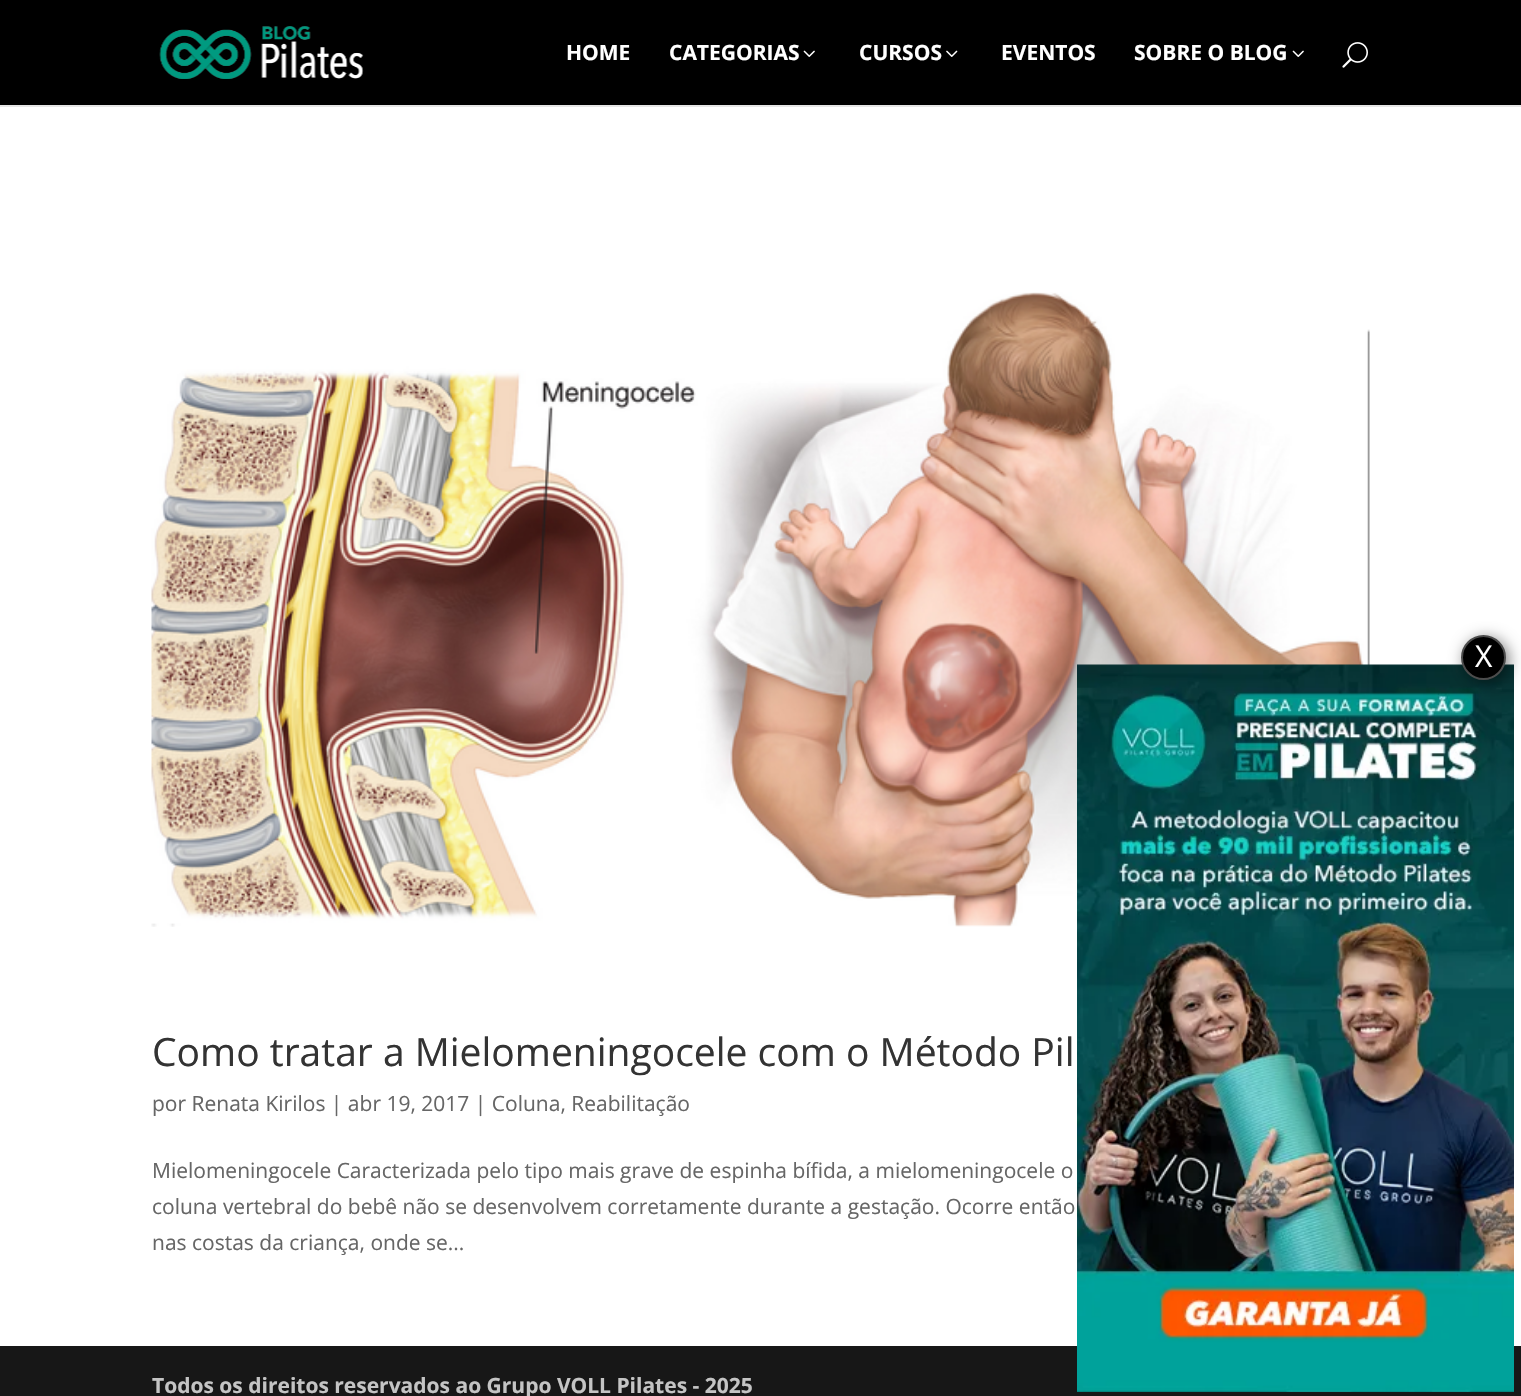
void draw(SkCanvas* canvas) {
	SkPaint fill;
	fill.setAntiAlias(true);
	auto makeFont = [&](const char* family, int weight, float size, bool italic = false) {
		SkFontStyle style(weight, SkFontStyle::kNormal_Width,
			italic ? SkFontStyle::kItalic_Slant : SkFontStyle::kUpright_Slant);
		SkFont result(fontMgr->matchFamilyStyle(family, style), size);
		result.setSubpixel(true);
		return result;
	};
	auto text = [&](const char* s, float x, float y, const SkFont& font) {
		canvas->drawString(s, x, y, font, fill);
	};
	auto box = [&](float l, float t, float r, float b) {
		canvas->drawRect(SkRect::MakeLTRB(l, t, r, b), fill);
	};
	auto picture = [&](const char* path, float l, float t, float r, float b) {
		auto image = SkImages::DeferredFromEncodedData(SkData::MakeFromFileName(path));
		canvas->drawImageRect(image, SkRect::MakeLTRB(l, t, r, b), SkSamplingOptions());
	};
	canvas->clear(0xFFFFFFFF);
	fill.setColor(0xFFE6E6E6);
	box(0, 105, 1521, 107);
	fill.setColor(0xFF000000);
	box(0, 0, 1521, 105);
	picture("image0.png", 159, 26, 364, 79);
	picture("image1.png", 803, 50, 815, 57);
	picture("image2.png", 946, 50, 958, 57);
	picture("image1.png", 1292, 50, 1304, 57);
	picture("image3.png", 1342, 42, 1368, 68);
	picture("image4.png", 151, 292, 1370, 927);
	fill.setColor(0xFF171717);
	box(0, 1346, 1521, 1396);
	picture("image5.png", 1077, 664, 1514, 1392);
	fill.setColor(0x85000000);
	fill.setMaskFilter(SkMaskFilter::MakeBlur(kNormal_SkBlurStyle, 7.5f));
	canvas->drawRoundRect(SkRect::MakeLTRB(1464, 638, 1509, 683), 22.5f, 22.5f, fill);
	fill.setMaskFilter(nullptr);
	fill.setColor(0xFF000000);
	canvas->drawCircle(1483.5f, 657.5f, 21.5f, fill);
	fill.setStyle(SkPaint::kStroke_Style);
	fill.setStrokeWidth(2);
	fill.setColor(0xFF4C4C4C);
	canvas->drawCircle(1483.5f, 657.5f, 21.5f, fill);
	auto font1 = makeFont("Open Sans", 700, 21);
	fill.setStyle(SkPaint::kFill_Style);
	fill.setColor(0xFFFFFFFF);
	text("HOME", 566, 60, font1);
	text("CATEGORIAS", 669, 60, font1);
	text("CURSOS", 859, 60, font1);
	text("EVENTOS", 1001, 60, font1);
	text("SOBRE O BLOG", 1134, 60, font1);
	auto font2 = makeFont("Open Sans", 400, 39);
	fill.setColor(0xFF333333);
	text("Como tratar a Mielomeningocele com o Método Pil", 152, 1066, font2);
	auto font3 = makeFont("Open Sans", 400, 21);
	fill.setColor(0xFF666666);
	text("por Renata Kirilos | abr 19, 2017 | Coluna, Reabilitação", 152, 1111, font3);
	text("Mielomeningocele Caracterizada pelo tipo mais grave de espinha bífida, a mielomeningocele o", 152, 1178, font3);
	text("coluna vertebral do bebê não se desenvolvem corretamente durante a gestação. Ocorre então", 152, 1214, font3);
	text("nas costas da criança, onde se...", 152, 1250, font3);
	fill.setColor(0xFFC4C4C4);
	text("Todos os direitos reservados ao Grupo VOLL Pilates - 2025", 152, 1393, font1);
	auto font4 = makeFont("Open Sans", 400, 30);
	fill.setColor(0xFFFFFFFF);
	text("X", 1475, 667, font4);
}
